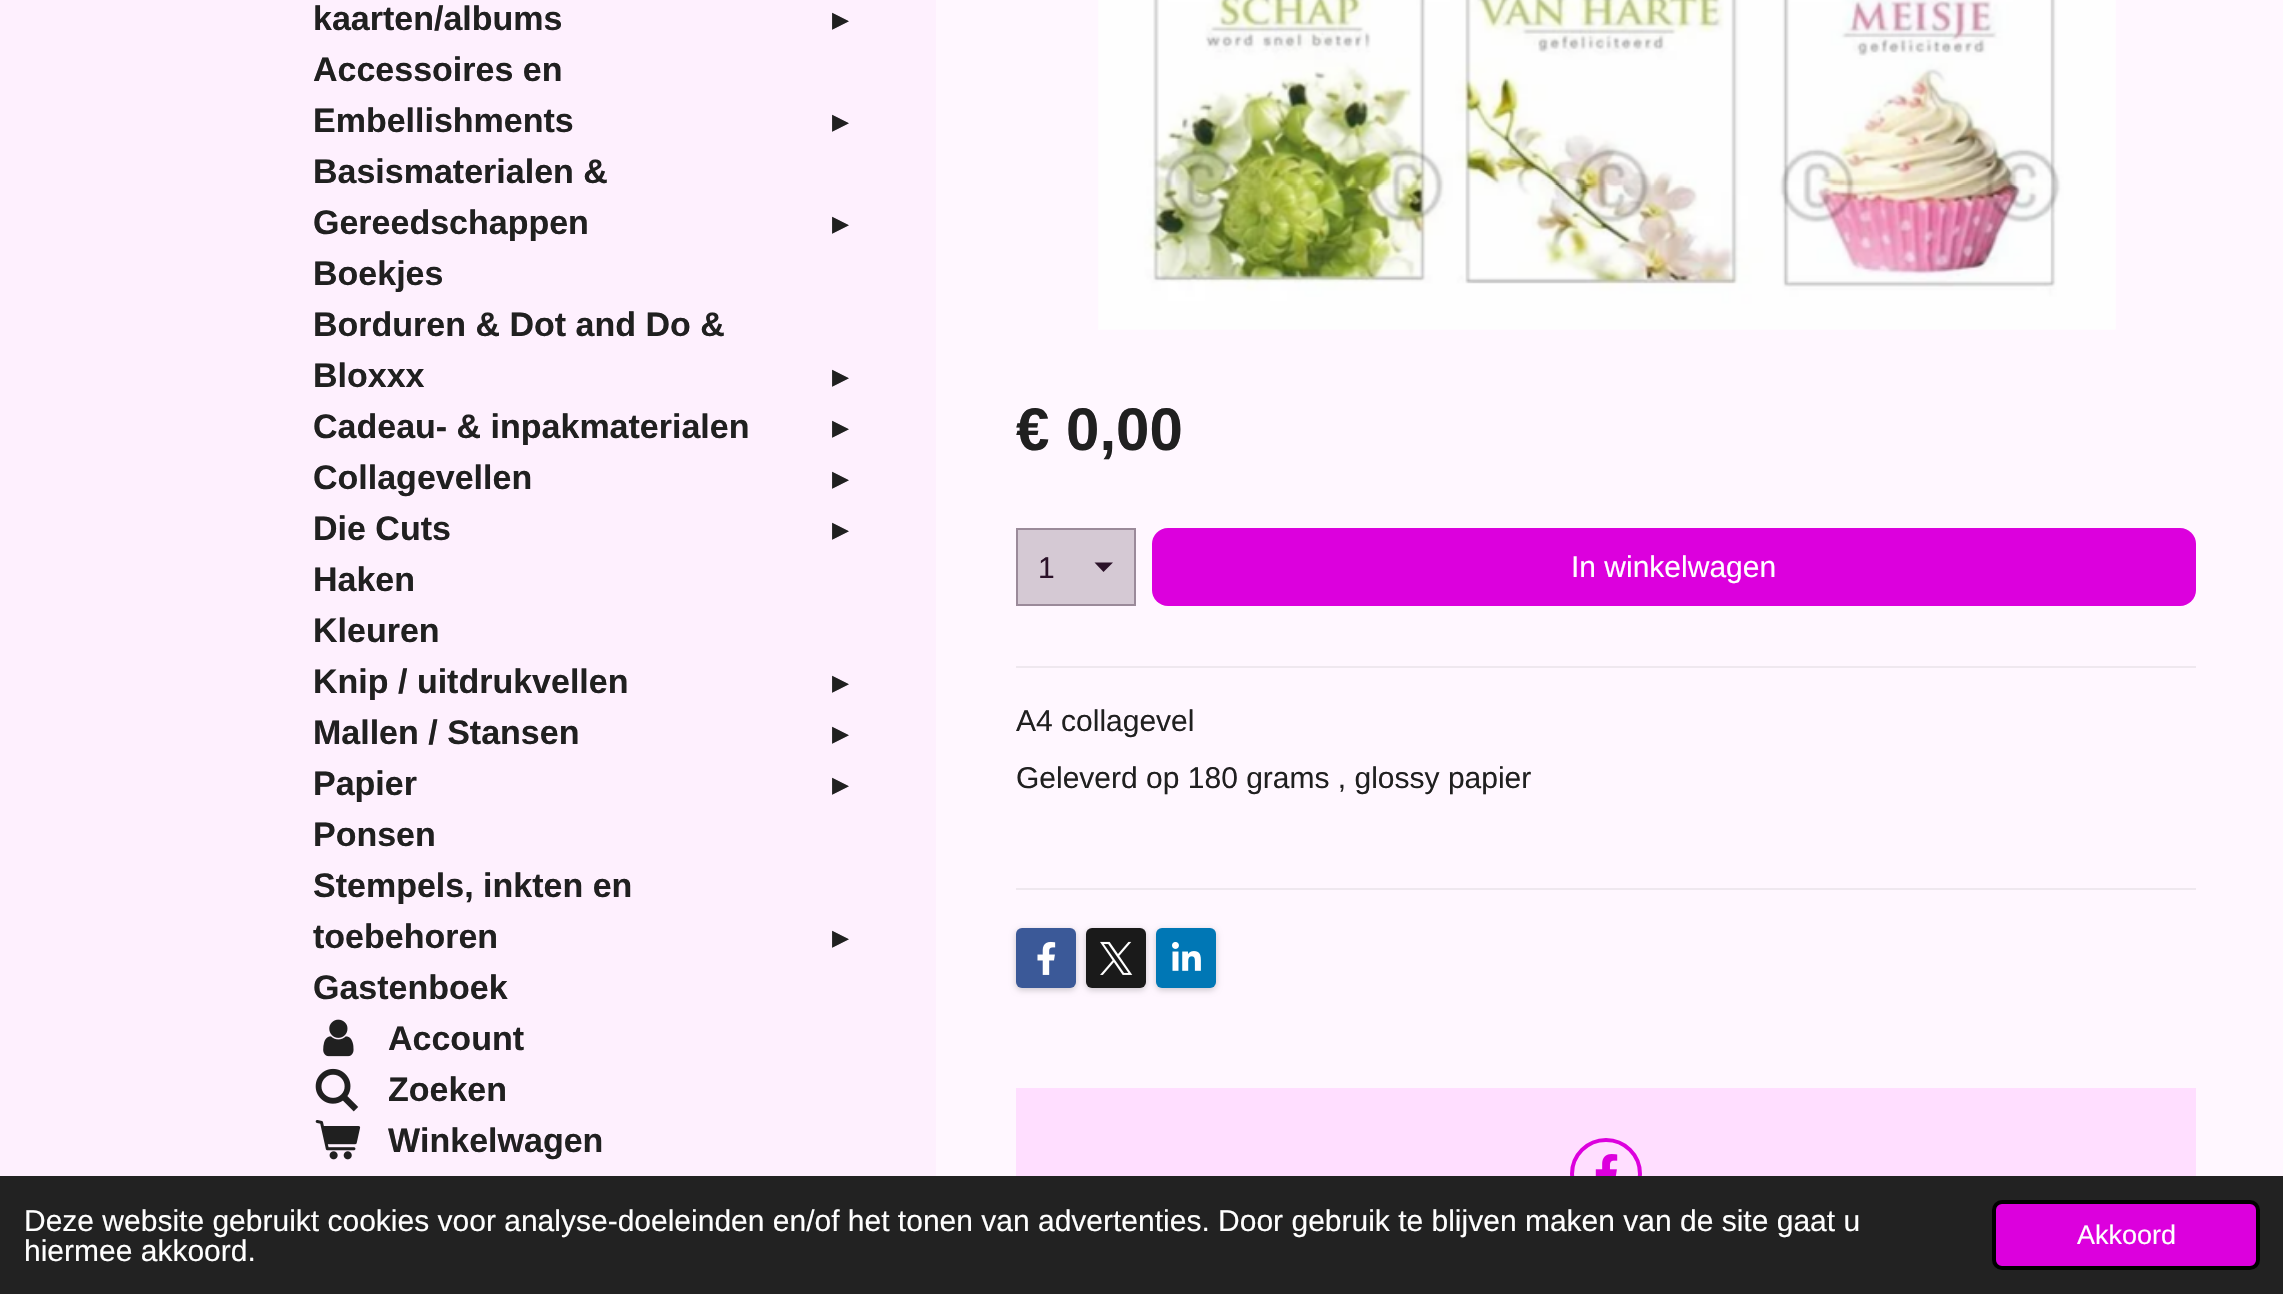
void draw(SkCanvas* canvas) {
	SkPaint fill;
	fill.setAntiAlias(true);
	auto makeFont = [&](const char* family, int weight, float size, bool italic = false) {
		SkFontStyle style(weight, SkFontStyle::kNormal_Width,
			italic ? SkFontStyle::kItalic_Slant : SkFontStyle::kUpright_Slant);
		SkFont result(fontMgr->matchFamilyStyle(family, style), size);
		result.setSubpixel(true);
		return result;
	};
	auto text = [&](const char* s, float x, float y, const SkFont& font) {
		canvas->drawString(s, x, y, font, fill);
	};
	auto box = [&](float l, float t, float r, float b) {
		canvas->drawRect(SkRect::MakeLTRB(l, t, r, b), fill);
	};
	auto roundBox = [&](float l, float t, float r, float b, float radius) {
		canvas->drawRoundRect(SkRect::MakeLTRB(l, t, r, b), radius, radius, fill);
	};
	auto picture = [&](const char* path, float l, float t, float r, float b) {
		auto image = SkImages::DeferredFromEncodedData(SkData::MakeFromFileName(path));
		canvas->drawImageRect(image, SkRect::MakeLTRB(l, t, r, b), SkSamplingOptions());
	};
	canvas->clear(0xFFFFF7FF);
	fill.setColor(0xFFFEF0FE);
	box(0, 0, 936, 1176);
	picture("image0.png", 323, 1019, 354, 1057);
	picture("image1.png", 315, 1068, 359, 1112);
	picture("image2.png", 315, 1120, 361, 1160);
	picture("image3.png", 1098, 0, 2116, 330);
	fill.setColor(0xFFD5C9D4);
	box(1018, 530, 1134, 604);
	fill.setColor(0xFF2B1229);
	canvas->drawPath(SkPathBuilder().moveTo(1103.5f, 572).lineTo(1094.5f, 562.5f).lineTo(1113, 562.5f).close().detach(), fill);
	fill.setStyle(SkPaint::kStroke_Style);
	fill.setStrokeWidth(2);
	fill.setColor(0xFF9B8A9A);
	canvas->drawRect(SkRect::MakeLTRB(1017, 529, 1135, 605), fill);
	fill.setStyle(SkPaint::kFill_Style);
	fill.setColor(0xFFDC00DD);
	roundBox(1152, 528, 2196, 606, 16);
	fill.setColor(0xFFEFE8EF);
	box(1016, 666, 2196, 668);
	box(1016, 888, 2196, 890);
	fill.setColor(0x33000000);
	fill.setMaskFilter(SkMaskFilter::MakeBlur(kNormal_SkBlurStyle, 3));
	canvas->drawRoundRect(SkRect::MakeLTRB(1016, 930, 1076, 990), 6, 6, fill);
	fill.setMaskFilter(nullptr);
	fill.setColor(0xFF3B5998);
	roundBox(1016, 928, 1076, 988, 6);
	picture("image4.png", 1037, 941, 1056, 975);
	fill.setColor(0x33000000);
	fill.setMaskFilter(SkMaskFilter::MakeBlur(kNormal_SkBlurStyle, 3));
	canvas->drawRoundRect(SkRect::MakeLTRB(1086, 930, 1146, 990), 6, 6, fill);
	fill.setMaskFilter(nullptr);
	fill.setColor(0xFF1A1A1A);
	roundBox(1086, 928, 1146, 988, 6);
	picture("image5.png", 1100, 941, 1133, 975);
	fill.setColor(0x33000000);
	fill.setMaskFilter(SkMaskFilter::MakeBlur(kNormal_SkBlurStyle, 3));
	canvas->drawRoundRect(SkRect::MakeLTRB(1156, 930, 1216, 990), 6, 6, fill);
	fill.setMaskFilter(nullptr);
	fill.setColor(0xFF0077B5);
	roundBox(1156, 928, 1216, 988, 6);
	picture("image6.png", 1172, 942, 1201, 971);
	fill.setColor(0xFFFFDEFF);
	box(1016, 1088, 2196, 1176);
	fill.setStyle(SkPaint::kStroke_Style);
	fill.setStrokeWidth(4);
	fill.setColor(0xFFDC00DD);
	canvas->drawCircle(1606, 1174, 34, fill);
	picture("image7.png", 1595, 1154, 1618, 1176);
	fill.setStyle(SkPaint::kFill_Style);
	fill.setColor(0xFF222222);
	box(0, 1176, 2283, 1294);
	fill.setColor(0xFFDC00DD);
	canvas->drawRoundRect(SkRect::MakeLTRB(1994, 1202, 2258, 1268), 8, 8, fill);
	fill.setStyle(SkPaint::kStroke_Style);
	fill.setColor(0xFF000000);
	canvas->drawRoundRect(SkRect::MakeLTRB(1994, 1202, 2258, 1268), 8, 8, fill);
	auto font1 = makeFont("Liberation Sans", 700, 34);
	fill.setStyle(SkPaint::kFill_Style);
	fill.setColor(0xFF202020);
	text("kaarten/albums", 313, 30, font1);
	auto font2 = makeFont("DejaVu Sans", 400, 34);
	text("▸", 832, 30, font2);
	text("Accessoires en", 313, 81, font1);
	text("Embellishments", 313, 132, font1);
	text("▸", 832, 132, font2);
	text("Basismaterialen &", 313, 183, font1);
	text("Gereedschappen", 313, 234, font1);
	text("▸", 832, 234, font2);
	text("Boekjes", 313, 285, font1);
	text("Borduren & Dot and Do &", 313, 336, font1);
	text("Bloxxx", 313, 387, font1);
	text("▸", 832, 387, font2);
	text("Cadeau- & inpakmaterialen", 313, 438, font1);
	text("▸", 832, 438, font2);
	text("Collagevellen", 313, 489, font1);
	text("▸", 832, 489, font2);
	text("Die Cuts", 313, 540, font1);
	text("▸", 832, 540, font2);
	text("Haken", 313, 591, font1);
	text("Kleuren", 313, 642, font1);
	text("Knip / uitdrukvellen", 313, 693, font1);
	text("▸", 832, 693, font2);
	text("Mallen / Stansen", 313, 744, font1);
	text("▸", 832, 744, font2);
	text("Papier", 313, 795, font1);
	text("▸", 832, 795, font2);
	text("Ponsen", 313, 846, font1);
	text("Stempels, inkten en", 313, 897, font1);
	text("toebehoren", 313, 948, font1);
	text("▸", 832, 948, font2);
	text("Gastenboek", 313, 999, font1);
	text("Account", 388, 1050, font1);
	text("Zoeken", 388, 1101, font1);
	text("Winkelwagen", 388, 1152, font1);
	auto font3 = makeFont("Liberation Sans", 700, 60);
	text("€ 0,00", 1016, 450, font3);
	auto font4 = makeFont("Liberation Sans", 400, 30);
	fill.setColor(0xFF2B1229);
	text("1", 1038, 578, font4);
	fill.setColor(0xFFFFFFFF);
	text("In winkelwagen", 1571, 577, font4);
	fill.setColor(0xFF202020);
	text("A4 collagevel", 1016, 731, font4);
	text("Geleverd op 180 grams , glossy papier", 1016, 788, font4);
	fill.setColor(0xFFFFFFFF);
	text("Deze website gebruikt cookies voor analyse-doeleinden en/of het tonen van advertenties. Door gebruik te blijven maken van de site gaat u", 24, 1231, font4);
	text("hiermee akkoord.", 24, 1261, font4);
	auto font5 = makeFont("Liberation Sans", 400, 27);
	text("Akkoord", 2077, 1244, font5);
}
